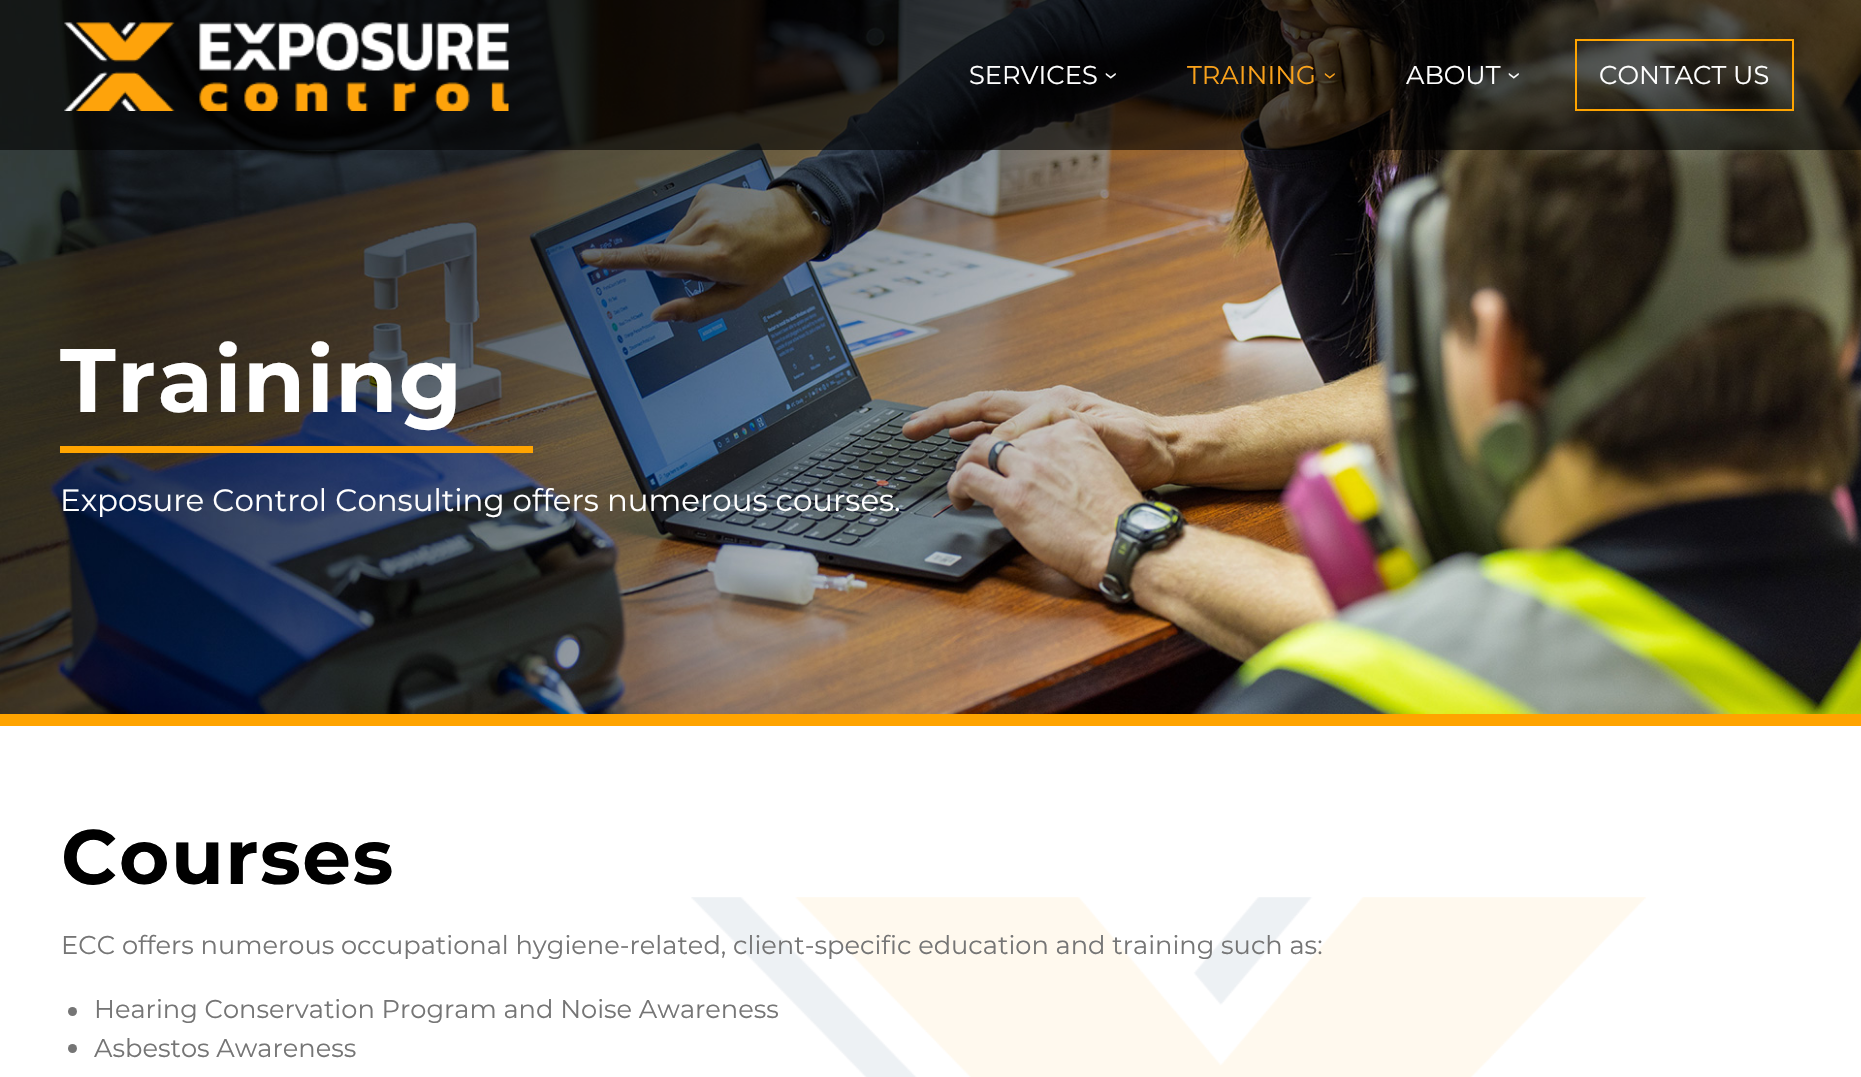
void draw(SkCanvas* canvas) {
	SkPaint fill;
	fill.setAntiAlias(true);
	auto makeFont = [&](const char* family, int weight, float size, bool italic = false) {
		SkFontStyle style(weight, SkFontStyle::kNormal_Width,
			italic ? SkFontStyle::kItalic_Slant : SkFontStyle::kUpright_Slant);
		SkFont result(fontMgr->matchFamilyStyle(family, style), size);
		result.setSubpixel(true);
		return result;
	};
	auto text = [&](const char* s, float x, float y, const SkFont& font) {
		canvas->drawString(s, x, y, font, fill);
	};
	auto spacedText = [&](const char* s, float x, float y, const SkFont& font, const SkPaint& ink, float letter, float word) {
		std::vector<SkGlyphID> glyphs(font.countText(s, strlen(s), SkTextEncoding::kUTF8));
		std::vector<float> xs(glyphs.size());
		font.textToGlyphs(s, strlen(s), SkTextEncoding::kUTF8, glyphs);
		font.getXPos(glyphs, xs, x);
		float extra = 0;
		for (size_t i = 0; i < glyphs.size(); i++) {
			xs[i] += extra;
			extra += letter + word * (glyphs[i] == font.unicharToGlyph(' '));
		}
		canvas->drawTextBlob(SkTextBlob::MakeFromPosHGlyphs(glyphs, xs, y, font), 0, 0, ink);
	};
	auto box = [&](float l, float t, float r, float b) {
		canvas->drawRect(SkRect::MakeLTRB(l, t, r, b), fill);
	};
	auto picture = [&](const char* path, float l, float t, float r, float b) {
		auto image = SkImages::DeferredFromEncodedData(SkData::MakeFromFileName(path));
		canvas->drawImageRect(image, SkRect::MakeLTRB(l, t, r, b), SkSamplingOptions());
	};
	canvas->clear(0xFFFFFFFF);
	picture("image1.png", 0, 0, 1861, 714);
	fill.setColor(0x99000000);
	box(0, 0, 1861, 150);
	picture("image0.png", 64, 22, 509, 111);
	fill.setStyle(SkPaint::kStroke_Style);
	fill.setStrokeWidth(2);
	fill.setColor(0xFFFFA400);
	canvas->drawRect(SkRect::MakeLTRB(1576, 40, 1793, 110), fill);
	fill.setStyle(SkPaint::kFill_Style);
	box(0, 714, 1861, 726);
	box(60, 446, 533, 453);
	picture("image2.png", 691, 897, 1646, 1077);
	fill.setColor(0xFF757575);
	canvas->drawCircle(72.5f, 1011.5f, 4.5f, fill);
	canvas->drawCircle(72.5f, 1048.5f, 4.5f, fill);
	auto font1 = makeFont("Montserrat", 400, 25.7f);
	fill.setColor(0xFFFFFFFF);
	text("SERVICES", 969, 84, font1);
	canvas->save();
	canvas->rotate(90, 1104, 72);
	text("›", 1104, 72, font1);
	canvas->restore();
	fill.setColor(0xFFFAA21B);
	text("TRAINING", 1187, 84, font1);
	canvas->save();
	canvas->rotate(90, 1323, 72);
	text("›", 1323, 72, font1);
	canvas->restore();
	fill.setColor(0xFFFFFFFF);
	text("ABOUT", 1406, 84, font1);
	canvas->save();
	canvas->rotate(90, 1507, 72);
	text("›", 1507, 72, font1);
	canvas->restore();
	text("CONTACT US", 1599, 84, font1);
	auto font2 = makeFont("Montserrat", 700, 90);
	spacedText("Training", 60, 412, font2, fill, 1.5f, 0);
	auto font3 = makeFont("Montserrat", 400, 30.85f);
	text("Exposure Control Consulting offers numerous courses.", 60, 511, font3);
	auto font4 = makeFont("Montserrat", 700, 77);
	fill.setColor(0xFF000000);
	spacedText("Courses", 61, 884, font4, fill, 1.5f, 0);
	fill.setColor(0xFF757575);
	text("ECC offers numerous occupational hygiene-related, client-specific education and training such as:", 61, 954, font1);
	text("Hearing Conservation Program and Noise Awareness", 94, 1018, font1);
	text("Asbestos Awareness", 94, 1057, font1);
}
